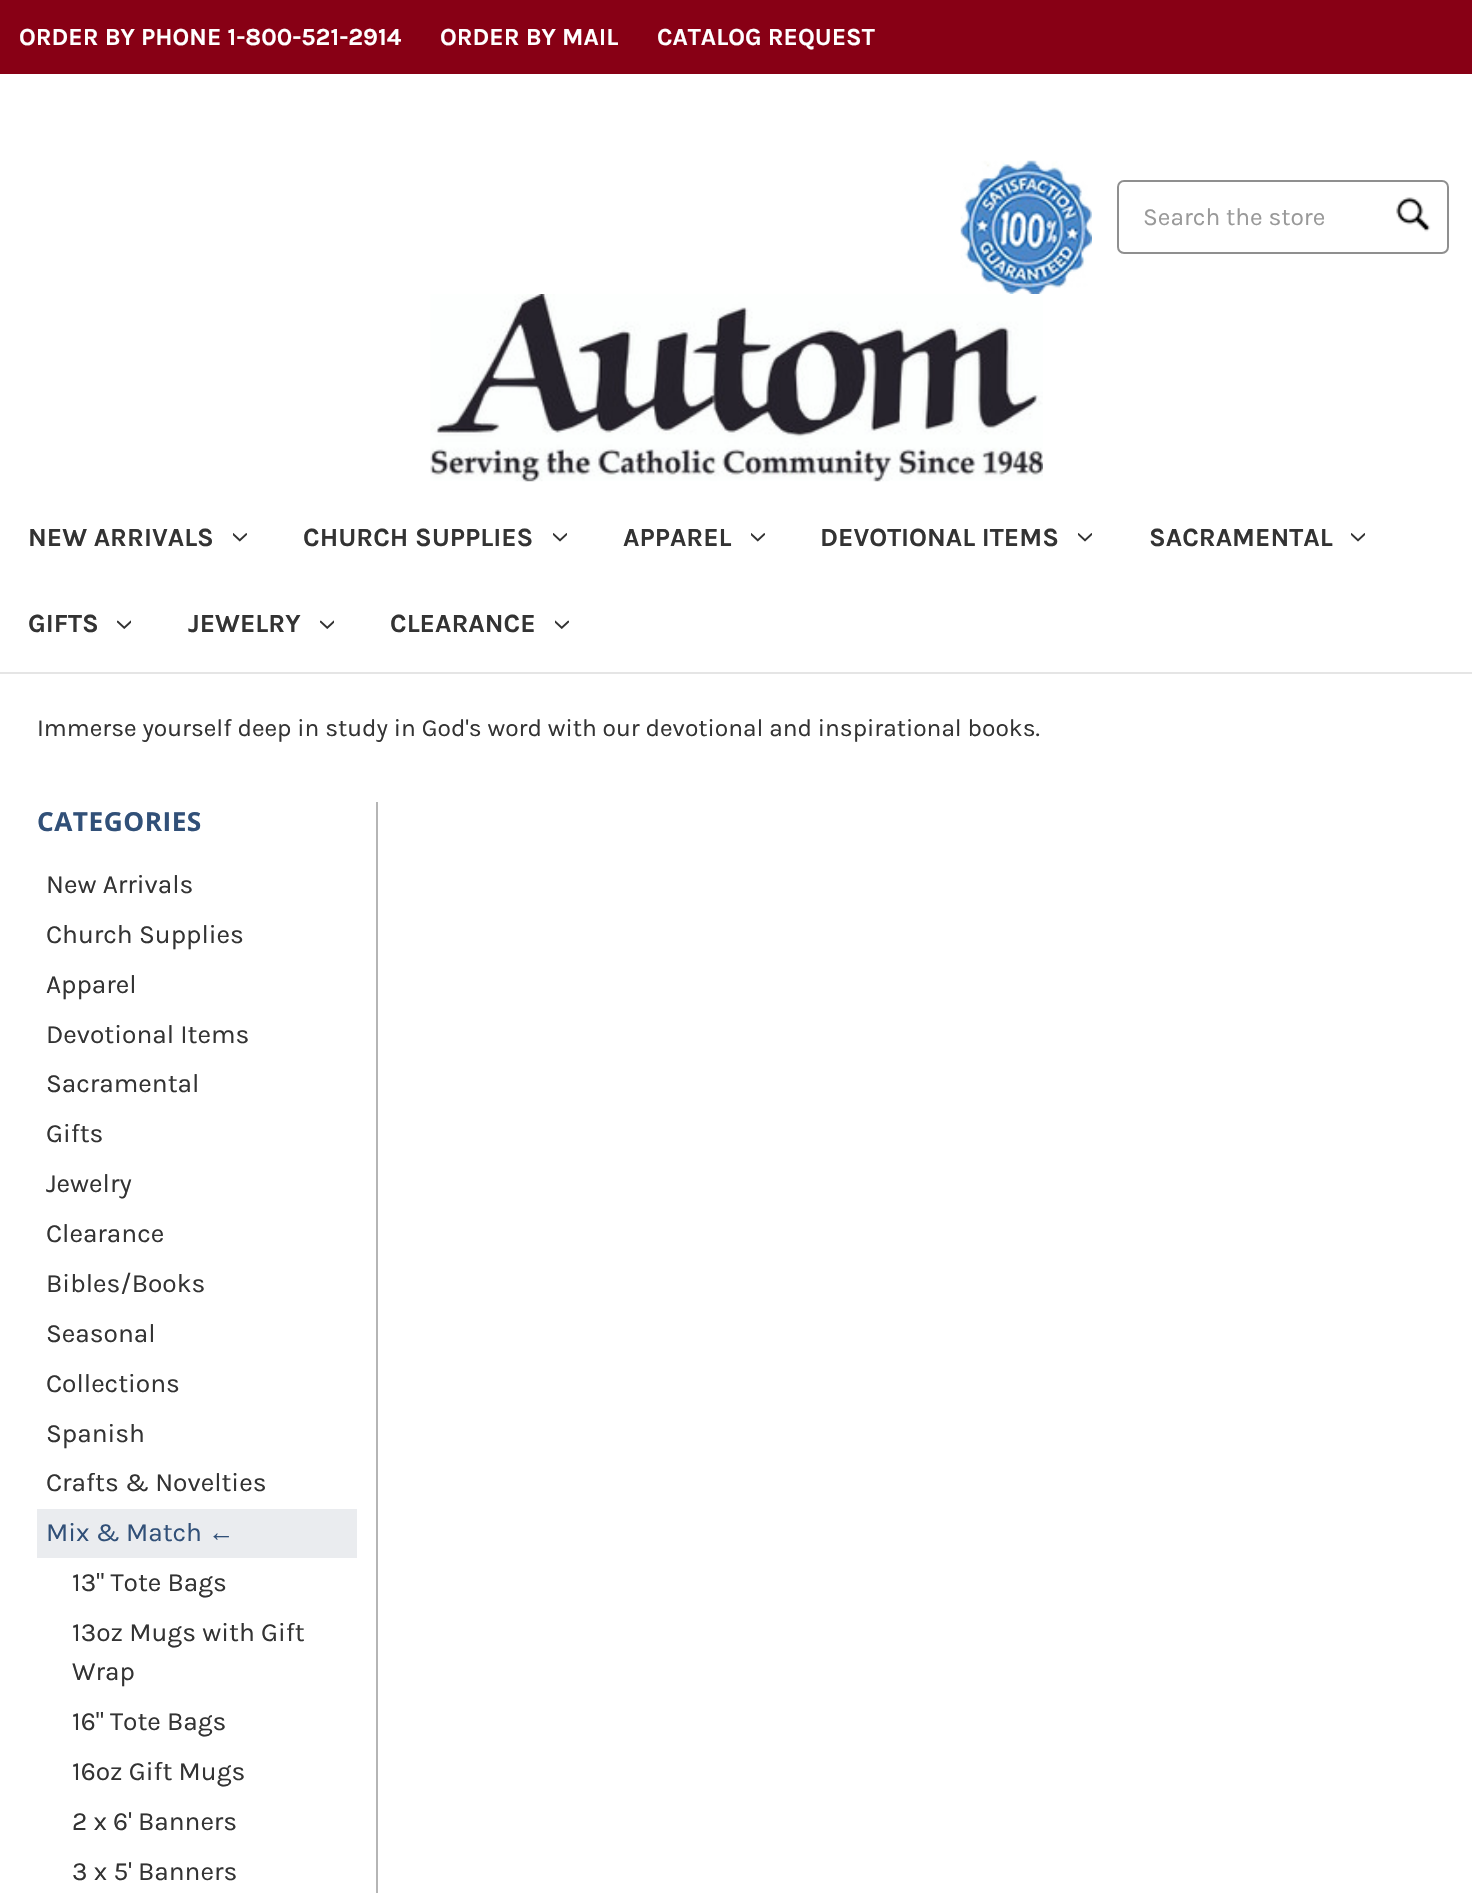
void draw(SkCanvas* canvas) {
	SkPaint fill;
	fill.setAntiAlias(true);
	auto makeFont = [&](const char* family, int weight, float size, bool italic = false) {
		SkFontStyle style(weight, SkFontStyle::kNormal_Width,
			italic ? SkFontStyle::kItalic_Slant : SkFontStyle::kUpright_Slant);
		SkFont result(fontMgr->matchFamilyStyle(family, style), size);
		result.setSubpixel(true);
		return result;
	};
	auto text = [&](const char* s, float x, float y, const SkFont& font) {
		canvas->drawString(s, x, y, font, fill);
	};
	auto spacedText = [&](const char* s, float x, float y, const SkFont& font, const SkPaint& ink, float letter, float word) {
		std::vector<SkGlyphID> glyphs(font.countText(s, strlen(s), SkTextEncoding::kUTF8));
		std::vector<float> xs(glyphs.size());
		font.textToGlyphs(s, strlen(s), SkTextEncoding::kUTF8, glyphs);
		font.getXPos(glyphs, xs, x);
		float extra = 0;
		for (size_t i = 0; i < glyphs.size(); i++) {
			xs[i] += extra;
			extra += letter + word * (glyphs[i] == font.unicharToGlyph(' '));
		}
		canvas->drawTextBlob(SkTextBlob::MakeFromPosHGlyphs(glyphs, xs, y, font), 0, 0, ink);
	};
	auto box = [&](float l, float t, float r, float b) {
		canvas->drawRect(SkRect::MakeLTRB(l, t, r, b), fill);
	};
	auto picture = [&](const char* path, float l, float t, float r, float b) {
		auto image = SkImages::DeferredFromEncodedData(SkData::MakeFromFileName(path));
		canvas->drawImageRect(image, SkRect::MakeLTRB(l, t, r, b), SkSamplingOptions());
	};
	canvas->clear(0xFFFFFFFF);
	fill.setColor(0xFFE5E5E5);
	box(0, 672, 1472, 674);
	fill.setColor(0xFF880015);
	box(0, 0, 1472, 74);
	picture("image0.png", 960, 160, 1092, 294);
	picture("image1.png", 1396, 197, 1431, 232);
	fill.setStyle(SkPaint::kStroke_Style);
	fill.setStrokeWidth(2);
	fill.setColor(0xFF8F8F8F);
	canvas->drawRoundRect(SkRect::MakeLTRB(1118, 181, 1448, 253), 6, 6, fill);
	picture("image2.png", 430, 294, 1043, 482);
	picture("image3.png", 233, 533, 247, 542);
	picture("image4.png", 553, 533, 567, 542);
	picture("image3.png", 751, 533, 765, 542);
	picture("image4.png", 1078, 533, 1092, 542);
	picture("image4.png", 1351, 533, 1365, 542);
	picture("image5.png", 117, 620, 131, 629);
	picture("image5.png", 320, 620, 334, 629);
	picture("image6.png", 555, 620, 569, 629);
	fill.setStyle(SkPaint::kFill_Style);
	fill.setColor(0xFFB5B5B5);
	box(376, 802, 378, 1893);
	fill.setColor(0xFFEAECEF);
	box(37, 1509, 357, 1558);
	auto font1 = makeFont("Karla", 700, 24.5f);
	fill.setColor(0xFFFFFFFF);
	text("ORDER BY PHONE 1-800-521-2914", 19, 45, font1);
	text("ORDER BY MAIL", 440, 45, font1);
	text("CATALOG REQUEST", 657, 45, font1);
	auto font2 = makeFont("Karla", 400, 24.5f);
	fill.setColor(0xFF999999);
	text("Search the store", 1143, 225, font2);
	auto font3 = makeFont("Karla", 700, 26.25f);
	fill.setColor(0xFF333333);
	text("NEW ARRIVALS", 28, 546, font3);
	text("CHURCH SUPPLIES", 303, 546, font3);
	text("APPAREL", 623, 546, font3);
	text("DEVOTIONAL ITEMS", 820, 546, font3);
	text("SACRAMENTAL", 1149, 546, font3);
	text("GIFTS", 28, 632, font3);
	text("JEWELRY", 188, 632, font3);
	text("CLEARANCE", 390, 632, font3);
	text("Immerse yourself deep in study in God's word with our devotional and inspirational books.", 37, 736, font2);
	auto font4 = makeFont("Open Sans", 700, 26.25f);
	fill.setColor(0xFF315078);
	spacedText("CATEGORIES", 37, 831, font4, fill, 0.5f, 0);
	auto font5 = makeFont("Karla", 400, 26.25f);
	fill.setColor(0xFF333333);
	text("New Arrivals", 46, 893, font5);
	text("Church Supplies", 46, 943, font5);
	text("Apparel", 46, 993, font5);
	text("Devotional Items", 46, 1043, font5);
	text("Sacramental", 46, 1092, font5);
	text("Gifts", 46, 1142, font5);
	text("Jewelry", 46, 1192, font5);
	text("Clearance", 46, 1242, font5);
	text("Bibles/Books", 46, 1292, font5);
	text("Seasonal", 46, 1342, font5);
	text("Collections", 46, 1392, font5);
	text("Spanish", 46, 1442, font5);
	text("Crafts & Novelties", 46, 1491, font5);
	fill.setColor(0xFF315078);
	text("Mix & Match", 46, 1541, font5);
	auto font6 = makeFont("Liberation Sans", 400, 26.25f);
	text("←", 208, 1541, font6);
	fill.setColor(0xFF333333);
	text("13\" Tote Bags", 72, 1591, font5);
	text("13oz Mugs with Gift", 72, 1641, font5);
	text("Wrap", 72, 1680, font5);
	text("16\" Tote Bags", 72, 1730, font5);
	text("16oz Gift Mugs", 72, 1780, font5);
	text("2 x 6' Banners", 72, 1830, font5);
	text("3 x 5' Banners", 72, 1880, font5);
}
